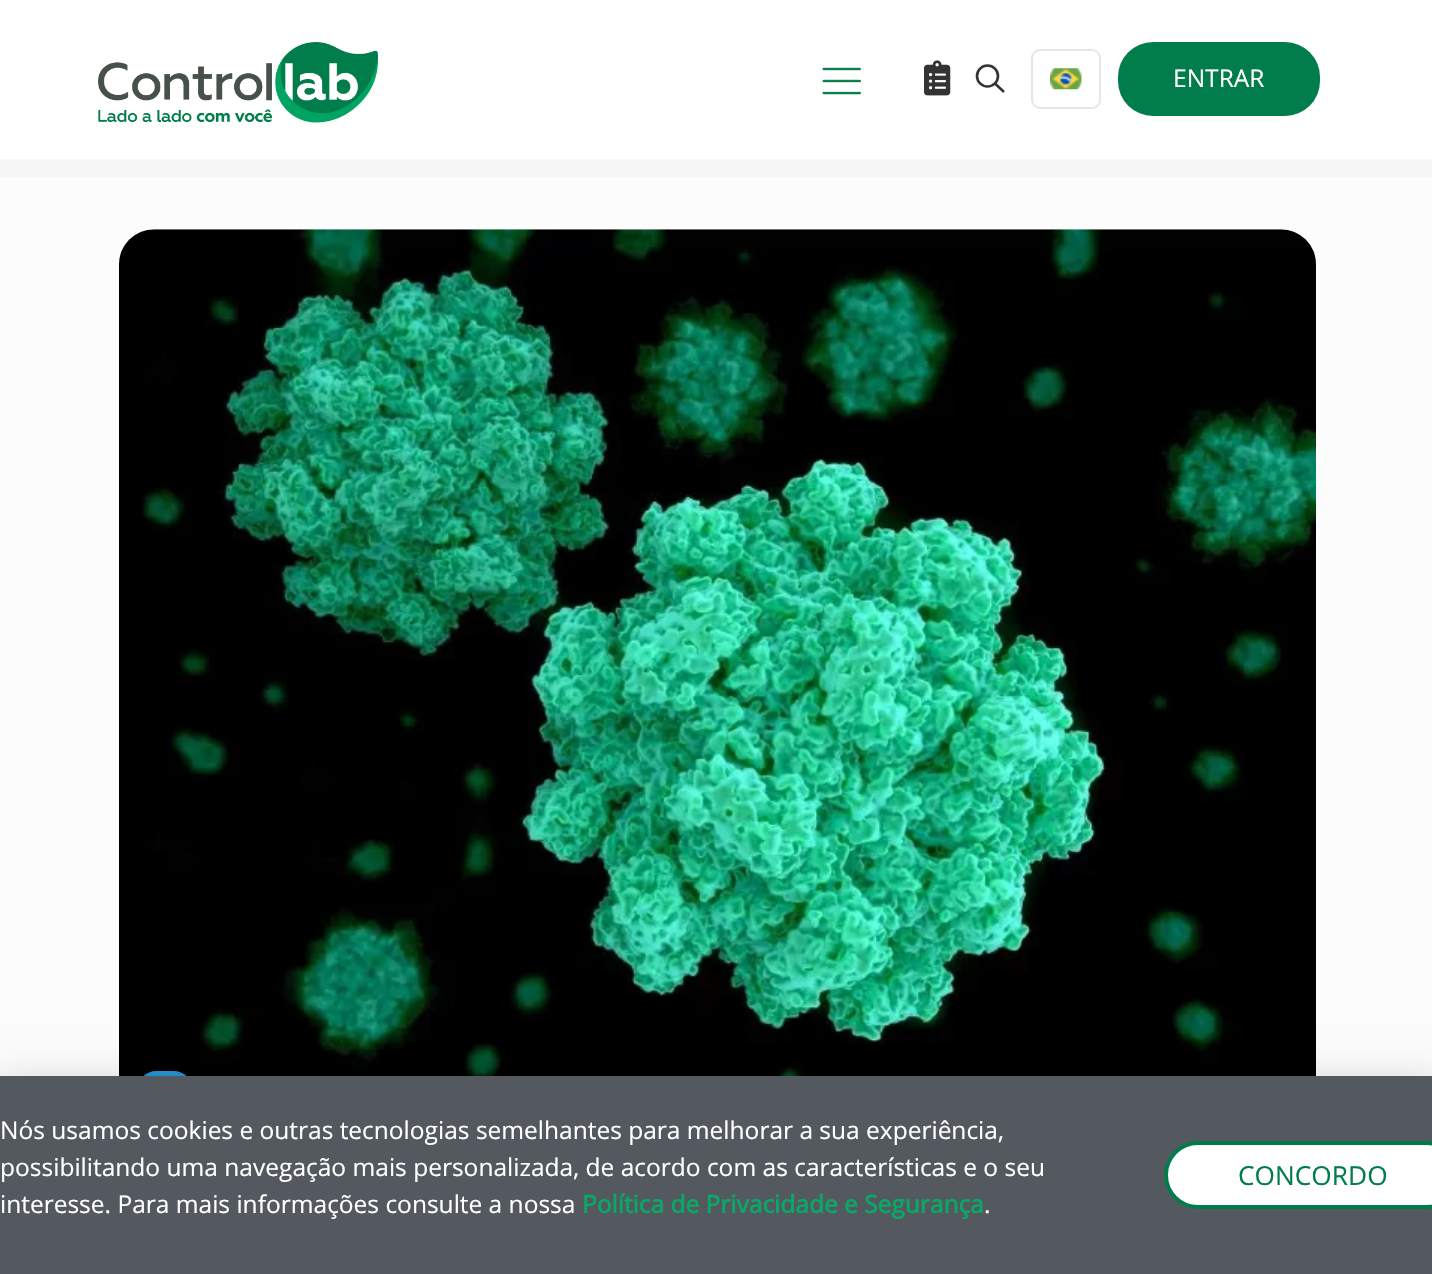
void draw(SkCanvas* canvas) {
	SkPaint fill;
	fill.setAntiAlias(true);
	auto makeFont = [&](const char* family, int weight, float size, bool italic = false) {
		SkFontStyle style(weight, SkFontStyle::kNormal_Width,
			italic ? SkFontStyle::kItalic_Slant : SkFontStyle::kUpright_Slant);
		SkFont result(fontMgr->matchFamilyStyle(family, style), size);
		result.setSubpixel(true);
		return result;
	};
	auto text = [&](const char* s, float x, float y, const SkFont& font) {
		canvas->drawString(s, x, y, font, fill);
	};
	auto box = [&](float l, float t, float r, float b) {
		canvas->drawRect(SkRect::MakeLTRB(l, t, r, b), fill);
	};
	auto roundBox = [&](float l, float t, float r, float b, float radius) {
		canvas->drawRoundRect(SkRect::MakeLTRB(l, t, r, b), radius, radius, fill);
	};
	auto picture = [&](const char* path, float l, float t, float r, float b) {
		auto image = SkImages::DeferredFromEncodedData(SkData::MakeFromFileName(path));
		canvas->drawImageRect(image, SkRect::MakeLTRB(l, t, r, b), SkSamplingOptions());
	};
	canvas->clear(0xFFFCFCFC);
	fill.setColor(0xFFFFFFFF);
	box(0, 0, 1432, 159);
	picture("image0.png", 98, 42, 378, 123);
	picture("image1.png", 822, 67, 861, 95);
	picture("image2.png", 924, 60, 951, 96);
	fill.setStyle(SkPaint::kStroke_Style);
	fill.setStrokeWidth(2.6f);
	fill.setColor(0xFF333333);
	canvas->drawCircle(987.5f, 76, 10.5f, fill);
	canvas->drawPath(SkPathBuilder().moveTo(995, 83.5f).lineTo(1004, 92).detach(), fill);
	fill.setStrokeWidth(2);
	fill.setColor(0xFFE6E6E6);
	canvas->drawRoundRect(SkRect::MakeLTRB(1032, 50, 1100, 108), 8, 8, fill);
	picture("image3.png", 1050, 68, 1082, 90);
	fill.setStyle(SkPaint::kFill_Style);
	fill.setColor(0xFF007D4B);
	roundBox(1118, 42, 1320, 116, 35);
	fill.setColor(0xFFF7F7F7);
	box(0, 159, 1432, 177);
	picture("image4.png", 119, 229, 1316, 1076);
	fill.setColor(0xFF2496D4);
	roundBox(137, 1071, 193, 1110, 19.5f);
	fill.setColor(0x33000000);
	fill.setMaskFilter(SkMaskFilter::MakeBlur(kNormal_SkBlurStyle, 20));
	canvas->drawRect(SkRect::MakeLTRB(-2, 1085, 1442, 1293), fill);
	fill.setMaskFilter(nullptr);
	fill.setColor(0xFF54595F);
	box(0, 1076, 1432, 1274);
	fill.setColor(0xFFFFFFFF);
	canvas->drawRoundRect(SkRect::MakeLTRB(1166, 1143, 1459, 1207), 32, 32, fill);
	fill.setStyle(SkPaint::kStroke_Style);
	fill.setStrokeWidth(4);
	fill.setColor(0xFF007D4B);
	canvas->drawRoundRect(SkRect::MakeLTRB(1166, 1143, 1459, 1207), 32, 32, fill);
	auto font1 = makeFont("Open Sans", 400, 24.5f);
	fill.setStyle(SkPaint::kFill_Style);
	fill.setColor(0xFFFFFFFF);
	text("ENTRAR", 1173, 87, font1);
	text("Nós usamos cookies e outras tecnologias semelhantes para melhorar a sua experiência,", 0, 1139, font1);
	text("possibilitando uma navegação mais personalizada, de acordo com as características e o seu", 0, 1176, font1);
	text("interesse. Para mais informações consulte a nossa", 0, 1213, font1);
	auto font2 = makeFont("Open Sans", 700, 24.5f);
	fill.setColor(0xFF08A967);
	text("Política de Privacidade e Segurança", 582, 1213, font2);
	fill.setColor(0xFFFFFFFF);
	text(".", 984, 1213, font1);
	auto font3 = makeFont("Open Sans", 400, 26.25f);
	fill.setColor(0xFF007D4B);
	text("CONCORDO", 1238, 1185, font3);
}
